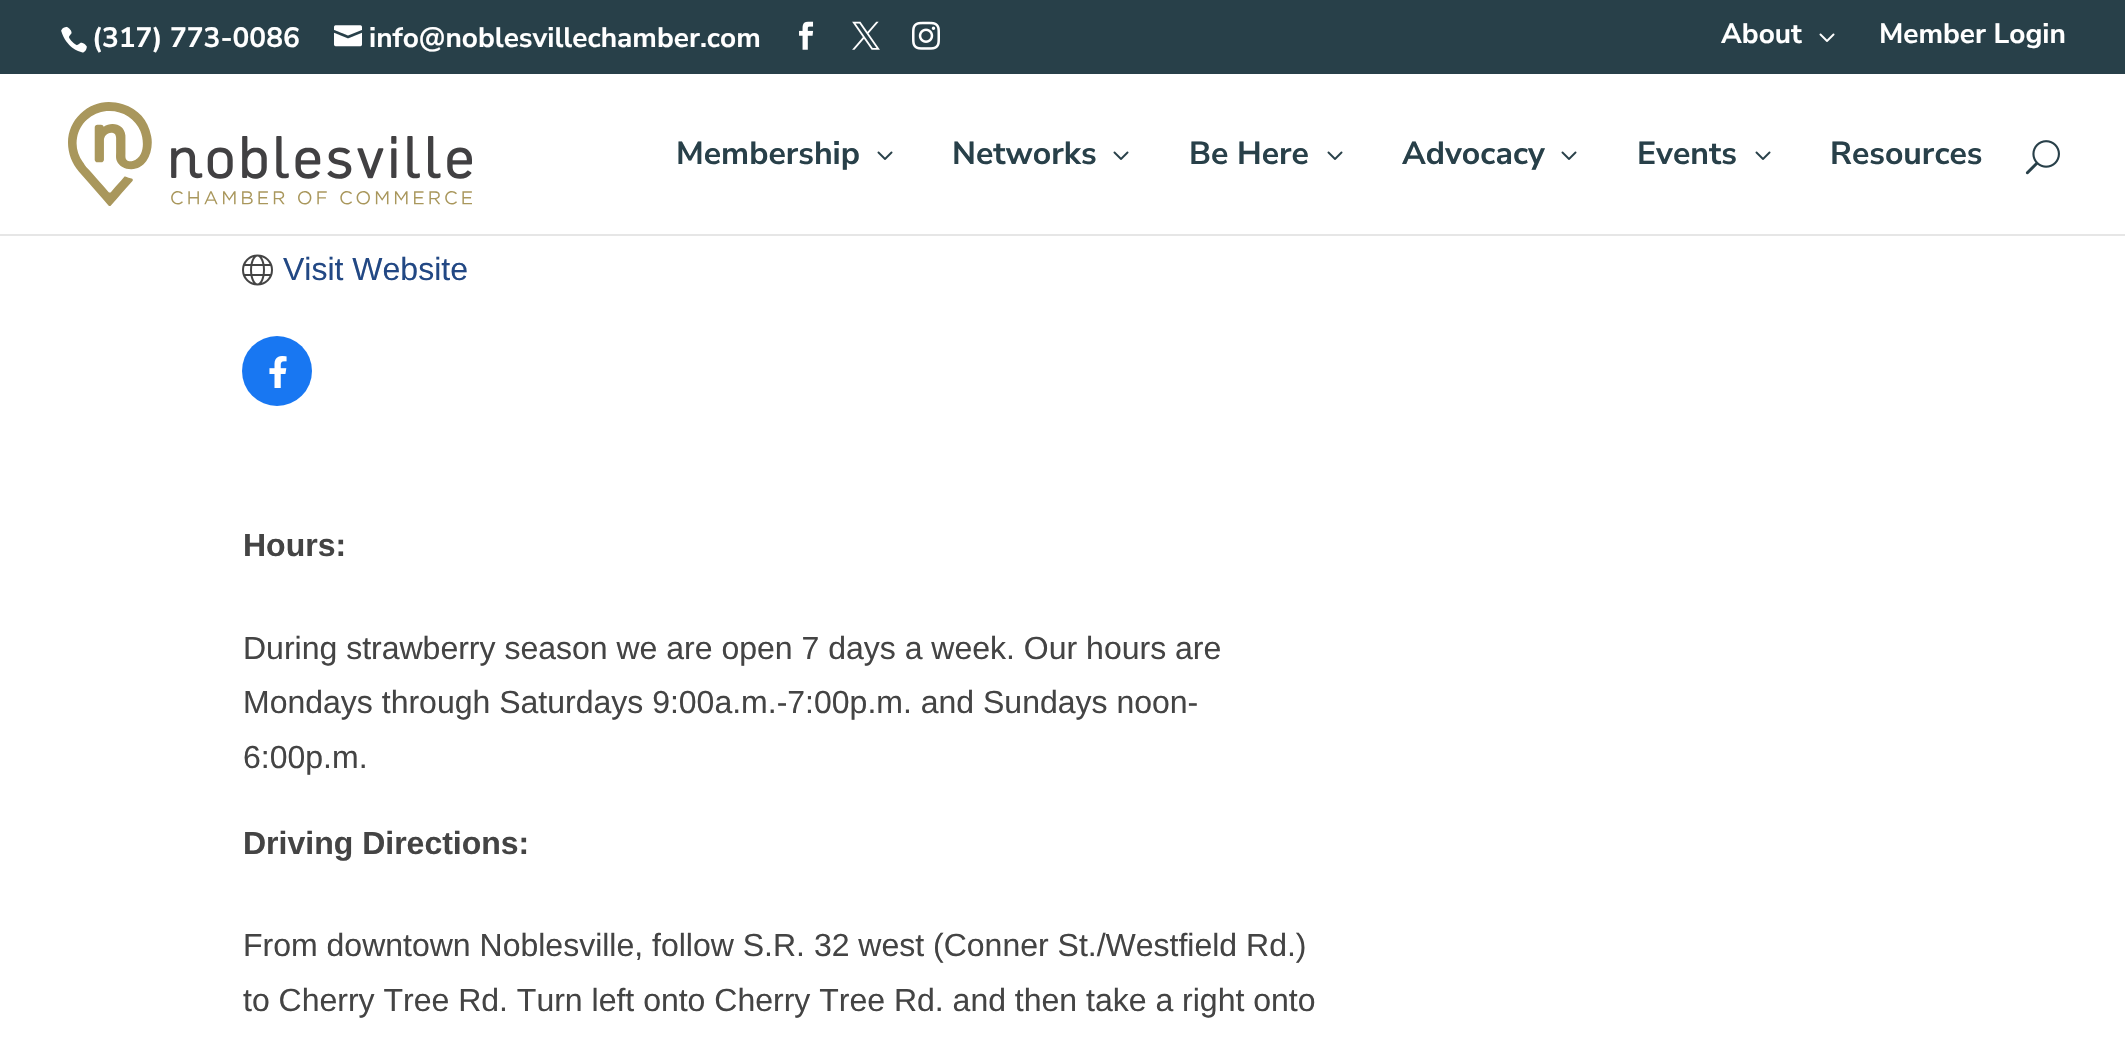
void draw(SkCanvas* canvas) {
	SkPaint fill;
	fill.setAntiAlias(true);
	auto makeFont = [&](const char* family, int weight, float size, bool italic = false) {
		SkFontStyle style(weight, SkFontStyle::kNormal_Width,
			italic ? SkFontStyle::kItalic_Slant : SkFontStyle::kUpright_Slant);
		SkFont result(fontMgr->matchFamilyStyle(family, style), size);
		result.setSubpixel(true);
		return result;
	};
	auto text = [&](const char* s, float x, float y, const SkFont& font) {
		canvas->drawString(s, x, y, font, fill);
	};
	auto box = [&](float l, float t, float r, float b) {
		canvas->drawRect(SkRect::MakeLTRB(l, t, r, b), fill);
	};
	auto picture = [&](const char* path, float l, float t, float r, float b) {
		auto image = SkImages::DeferredFromEncodedData(SkData::MakeFromFileName(path));
		canvas->drawImageRect(image, SkRect::MakeLTRB(l, t, r, b), SkSamplingOptions());
	};
	canvas->clear(0xFFFFFFFF);
	fill.setColor(0xFF284049);
	box(0, 0, 2125, 74);
	picture("image0.png", 61, 26, 87, 53);
	picture("image1.png", 334, 25, 362, 47);
	picture("image2.png", 799, 21, 814, 50);
	picture("image3.png", 852, 21, 880, 50);
	picture("image4.png", 912, 21, 940, 50);
	picture("image5.png", 1819, 33, 1835, 42);
	fill.setColor(0xFFE6E6E6);
	box(0, 234, 2125, 236);
	picture("image6.png", 68, 102, 472, 206);
	picture("image7.png", 877, 151, 893, 160);
	picture("image7.png", 1113, 151, 1129, 160);
	picture("image7.png", 1327, 151, 1343, 160);
	picture("image7.png", 1561, 151, 1577, 160);
	picture("image7.png", 1755, 151, 1771, 160);
	picture("image8.png", 2025, 140, 2060, 175);
	picture("image9.png", 242, 254, 273, 286);
	fill.setColor(0xFF1877F2);
	canvas->drawCircle(277, 371, 35, fill);
	picture("image10.png", 269, 356, 287, 388);
	auto font1 = makeFont("Nunito Sans", 700, 28);
	fill.setColor(0xFFFFFFFF);
	text("(317) 773-0086", 92, 47, font1);
	text("info@noblesvillechamber.com", 369, 47, font1);
	text("About", 1721, 43, font1);
	text("Member Login", 1879, 43, font1);
	auto font2 = makeFont("Nunito Sans", 700, 32);
	fill.setColor(0xFF284049);
	text("Membership", 676, 164, font2);
	text("Networks", 952, 164, font2);
	text("Be Here", 1189, 164, font2);
	text("Advocacy", 1402, 164, font2);
	text("Events", 1637, 164, font2);
	text("Resources", 1830, 164, font2);
	auto font3 = makeFont("Liberation Sans", 400, 32);
	fill.setColor(0xFF224884);
	text("Visit Website", 283, 280, font3);
	auto font4 = makeFont("Liberation Sans", 700, 32);
	fill.setColor(0xFF444444);
	text("Hours:", 243, 556, font4);
	text("During strawberry season we are open 7 days a week. Our hours are", 243, 659, font3);
	text("Mondays through Saturdays 9:00a.m.-7:00p.m. and Sundays noon-", 243, 713, font3);
	text("6:00p.m.", 243, 768, font3);
	text("Driving Directions:", 243, 854, font4);
	text("From downtown Noblesville, follow S.R. 32 west (Conner St./Westfield Rd.)", 243, 956, font3);
	text("to Cherry Tree Rd. Turn left onto Cherry Tree Rd. and then take a right onto", 243, 1011, font3);
}
